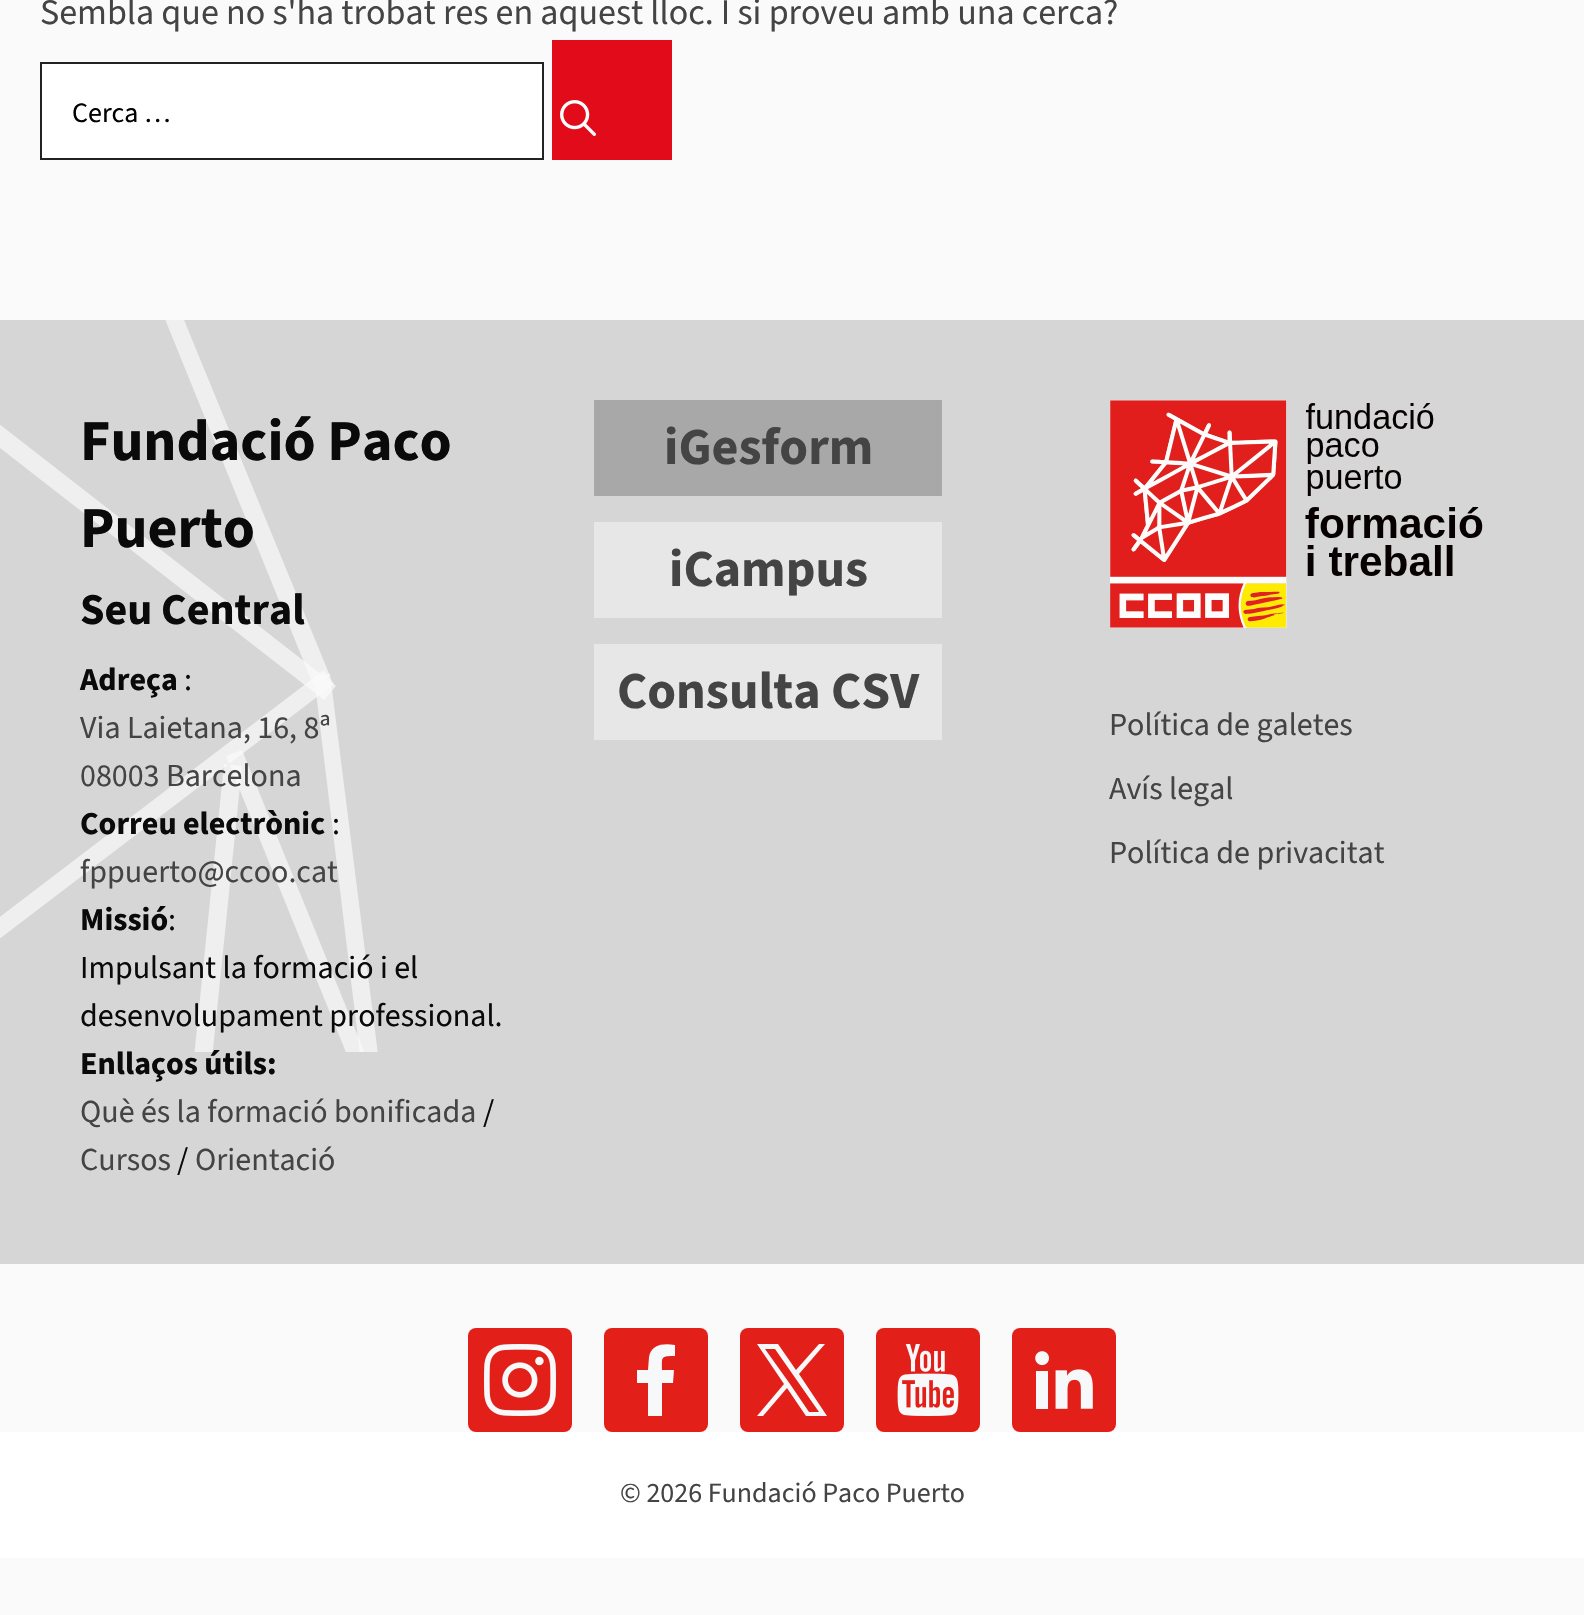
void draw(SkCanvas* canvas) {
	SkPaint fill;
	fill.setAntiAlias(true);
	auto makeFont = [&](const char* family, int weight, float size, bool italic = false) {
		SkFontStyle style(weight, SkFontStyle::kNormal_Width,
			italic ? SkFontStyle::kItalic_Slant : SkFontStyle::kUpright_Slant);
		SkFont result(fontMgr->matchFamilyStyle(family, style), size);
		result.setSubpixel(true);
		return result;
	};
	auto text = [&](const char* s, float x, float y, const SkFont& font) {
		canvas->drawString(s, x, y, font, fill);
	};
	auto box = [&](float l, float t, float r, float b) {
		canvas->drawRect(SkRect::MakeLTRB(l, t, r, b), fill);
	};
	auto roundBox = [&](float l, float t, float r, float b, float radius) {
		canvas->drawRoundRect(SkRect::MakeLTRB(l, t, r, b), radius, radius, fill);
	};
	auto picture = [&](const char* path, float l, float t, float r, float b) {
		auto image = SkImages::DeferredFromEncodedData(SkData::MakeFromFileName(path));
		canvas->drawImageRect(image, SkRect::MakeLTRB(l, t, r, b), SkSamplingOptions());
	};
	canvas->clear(0xFFFAFAFA);
	fill.setColor(0xFFFFFFFF);
	canvas->drawRect(SkRect::MakeLTRB(41, 63, 543, 159), fill);
	fill.setStyle(SkPaint::kStroke_Style);
	fill.setStrokeWidth(2);
	fill.setColor(0xFF222222);
	canvas->drawRect(SkRect::MakeLTRB(41, 63, 543, 159), fill);
	fill.setStyle(SkPaint::kFill_Style);
	fill.setColor(0xFFE20B19);
	box(552, 40, 672, 160);
	picture("image0.png", 560, 100, 596, 136);
	fill.setColor(0xFFD6D6D6);
	box(0, 320, 1584, 1264);
	picture("image1.png", 0, 320, 378, 1052);
	fill.setColor(0xFFA8A8A8);
	box(594, 400, 942, 496);
	fill.setColor(0xFFE7E7E7);
	box(594, 522, 942, 618);
	box(594, 644, 942, 740);
	picture("image2.png", 1110, 400, 1483, 628);
	fill.setColor(0xFFE22019);
	roundBox(468, 1328, 572, 1432, 8);
	picture("image3.png", 484, 1344, 556, 1416);
	roundBox(604, 1328, 708, 1432, 8);
	fill.setColor(0xFFF7F8F9);
	canvas->drawPath(SkPathBuilder().moveTo(662, 1416).lineTo(662, 1383).lineTo(673, 1383).lineTo(674, 1370).lineTo(662, 1370).cubicTo(662, 1357, 660, 1356, 675, 1356).lineTo(675, 1345).cubicTo(664, 1343, 651, 1344, 649, 1357).lineTo(648, 1370).lineTo(637, 1370).lineTo(637, 1383).lineTo(648, 1383).lineTo(648, 1416).close().detach(), fill);
	fill.setColor(0xFFE22019);
	roundBox(740, 1328, 844, 1432, 8);
	fill.setColor(0xFFF7F8F9);
	canvas->drawPath(SkPathBuilder().moveTo(799, 1374).lineTo(825, 1344).lineTo(819, 1344).lineTo(796, 1370).lineTo(778, 1344).lineTo(757, 1344).lineTo(784, 1384).lineTo(757, 1416).lineTo(763, 1416).lineTo(787, 1388).lineTo(806, 1416).lineTo(827, 1416).close().moveTo(790, 1384).lineTo(765, 1349).lineTo(775, 1349).lineTo(819, 1412).lineTo(809, 1412).close().detach(), fill);
	fill.setColor(0xFFE22019);
	roundBox(876, 1328, 980, 1432, 8);
	picture("image4.png", 897, 1344, 959, 1416);
	roundBox(1012, 1328, 1116, 1432, 8);
	picture("image5.png", 1035, 1351, 1093, 1409);
	fill.setColor(0xFFFFFFFF);
	box(0, 1432, 1584, 1558);
	auto font1 = makeFont("Source Sans 3", 400, 36);
	fill.setColor(0xFF444444);
	text("Sembla que no s'ha trobat res en aquest lloc. I si proveu amb una cerca?", 40, 24, font1);
	auto font2 = makeFont("Source Sans 3", 400, 28);
	fill.setColor(0xFF000000);
	text("Cerca …", 72, 122, font2);
	auto font3 = makeFont("Source Sans 3", 700, 58);
	fill.setColor(0xFF0A0A0A);
	text("Fundació Paco", 80, 460, font3);
	text("Puerto", 80, 547, font3);
	auto font4 = makeFont("Source Sans 3", 700, 44);
	text("Seu Central", 80, 624, font4);
	auto font5 = makeFont("Source Sans 3", 700, 32);
	text("Adreça", 80, 690, font5);
	auto font6 = makeFont("Source Sans 3", 400, 32);
	text(":", 184, 690, font6);
	fill.setColor(0xFF444444);
	text("Via Laietana, 16, 8ª", 80, 738, font6);
	text("08003 Barcelona", 80, 786, font6);
	fill.setColor(0xFF0A0A0A);
	text("Correu electrònic", 80, 834, font5);
	text(":", 332, 834, font6);
	fill.setColor(0xFF444444);
	text("fppuerto@ccoo.cat", 80, 882, font6);
	fill.setColor(0xFF0A0A0A);
	text("Missió", 80, 930, font5);
	text(":", 168, 930, font6);
	text("Impulsant la formació i el", 80, 978, font6);
	text("desenvolupament professional.", 80, 1026, font6);
	text("Enllaços útils:", 80, 1074, font5);
	fill.setColor(0xFF444444);
	text("Què és la formació bonificada", 80, 1122, font6);
	fill.setColor(0xFF0A0A0A);
	text("/", 483, 1122, font6);
	fill.setColor(0xFF444444);
	text("Cursos", 80, 1170, font6);
	fill.setColor(0xFF0A0A0A);
	text("/", 177, 1170, font6);
	fill.setColor(0xFF444444);
	text("Orientació", 195, 1170, font6);
	auto font7 = makeFont("Source Sans 3", 700, 52);
	text("iGesform", 664, 464, font7);
	text("iCampus", 669, 586, font7);
	text("Consulta CSV", 617, 708, font7);
	text("Política de galetes", 1109, 735, font6);
	text("Avís legal", 1109, 799, font6);
	text("Política de privacitat", 1109, 863, font6);
	text("© 2026 Fundació Paco Puerto", 620, 1502, font2);
}
